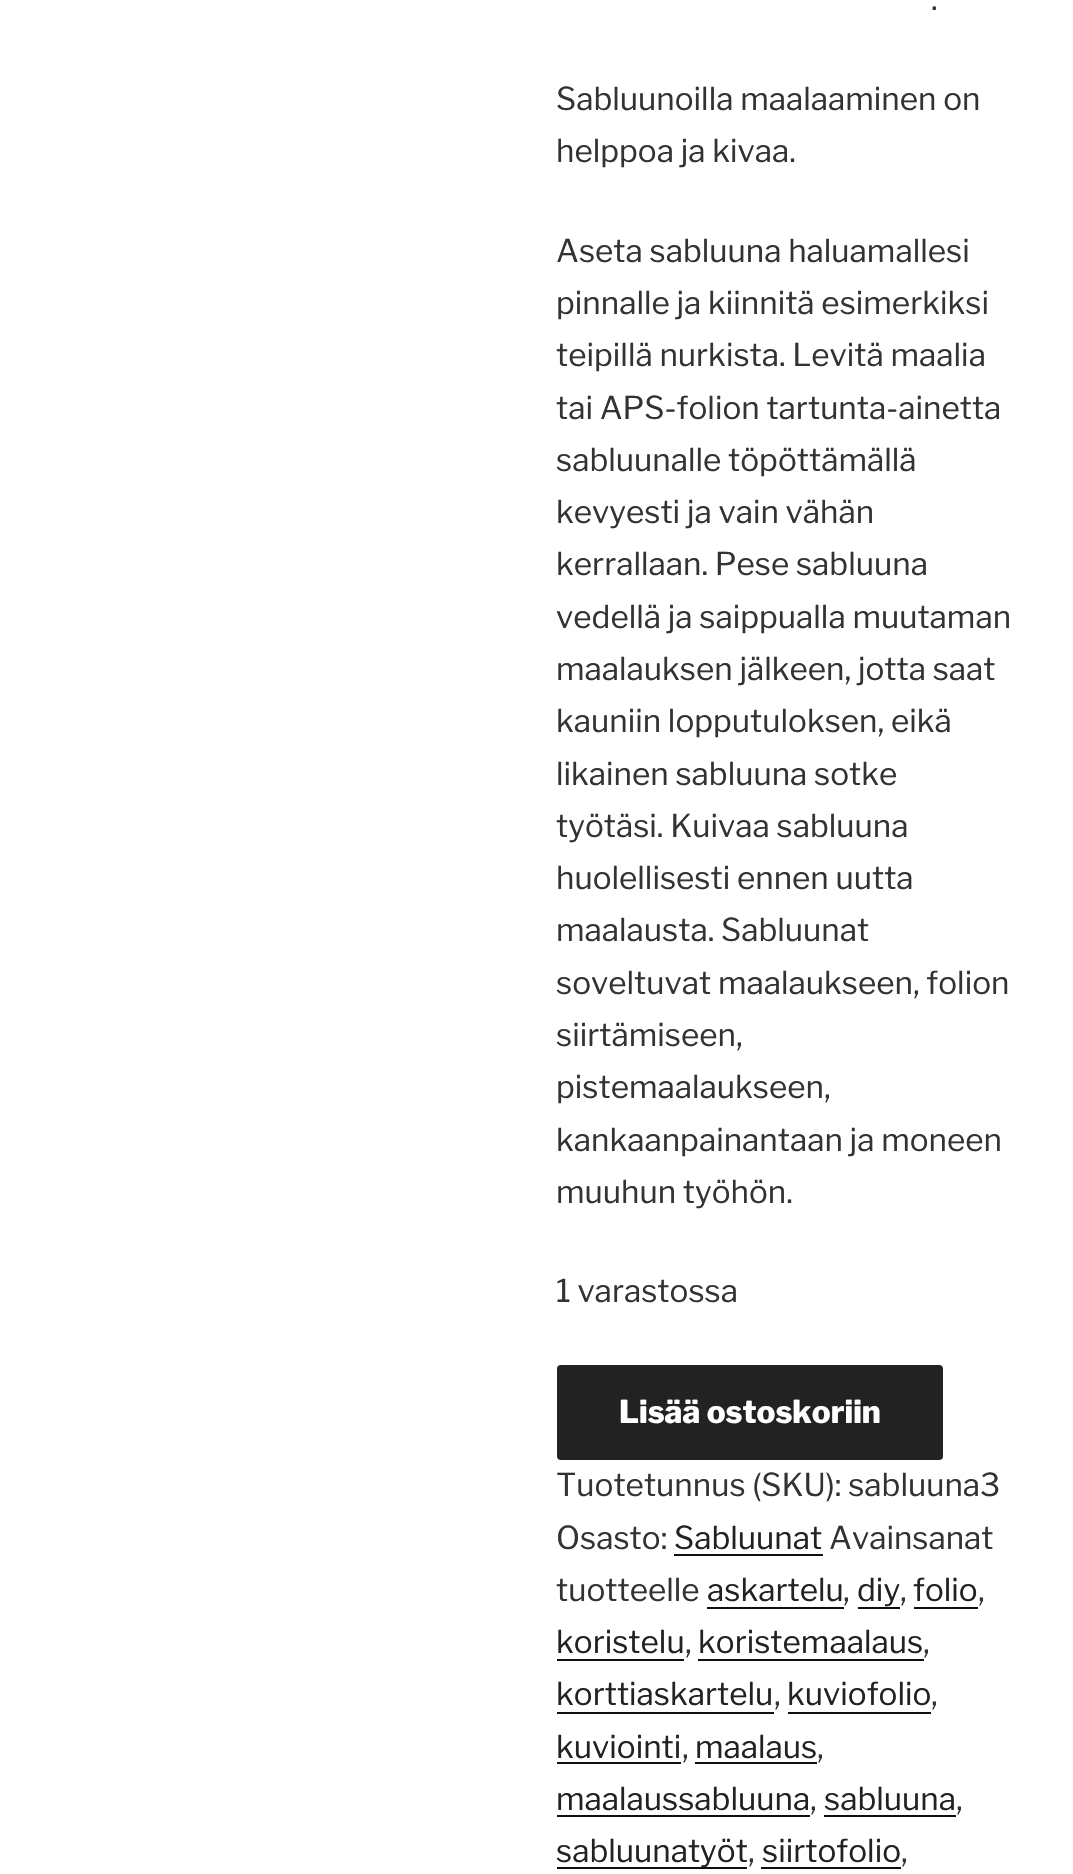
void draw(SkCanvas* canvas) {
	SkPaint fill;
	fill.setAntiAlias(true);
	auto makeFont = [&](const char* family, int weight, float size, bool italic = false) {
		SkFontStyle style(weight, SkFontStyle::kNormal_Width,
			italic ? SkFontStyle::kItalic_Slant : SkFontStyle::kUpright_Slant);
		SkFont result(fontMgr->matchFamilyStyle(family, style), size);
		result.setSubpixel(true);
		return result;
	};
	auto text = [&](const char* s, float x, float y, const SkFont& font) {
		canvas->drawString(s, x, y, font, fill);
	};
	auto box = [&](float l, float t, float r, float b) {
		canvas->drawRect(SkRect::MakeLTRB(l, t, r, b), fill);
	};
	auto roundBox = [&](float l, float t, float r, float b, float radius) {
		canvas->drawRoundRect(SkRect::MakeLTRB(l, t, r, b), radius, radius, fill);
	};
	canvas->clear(0xFFFFFFFF);
	fill.setColor(0xFF222222);
	roundBox(557, 1365, 943, 1460, 4);
	fill.setColor(0xFF0F0F0F);
	box(674, 1554, 823, 1556);
	box(707, 1607, 844, 1609);
	box(858, 1607, 900, 1609);
	box(914, 1607, 978, 1609);
	box(557, 1659, 684, 1661);
	box(698, 1659, 924, 1661);
	box(557, 1712, 774, 1714);
	box(788, 1712, 931, 1714);
	box(557, 1762, 681, 1764);
	box(695, 1762, 817, 1764);
	box(557, 1815, 810, 1817);
	box(824, 1815, 956, 1817);
	box(557, 1867, 747, 1869);
	box(761, 1867, 901, 1869);
	auto font1 = makeFont("Libre Franklin", 400, 31.5f);
	fill.setColor(0xFF333333);
	text(".", 931, 10, font1);
	text("Sabluunoilla maalaaminen on", 556, 110, font1);
	text("helppoa ja kivaa.", 556, 162, font1);
	text("Aseta sabluuna haluamallesi", 556, 262, font1);
	text("pinnalle ja kiinnitä esimerkiksi", 556, 314, font1);
	text("teipillä nurkista. Levitä maalia", 556, 366, font1);
	text("tai APS-folion tartunta-ainetta", 556, 419, font1);
	text("sabluunalle töpöttämällä", 556, 471, font1);
	text("kevyesti ja vain vähän", 556, 523, font1);
	text("kerrallaan. Pese sabluuna", 556, 575, font1);
	text("vedellä ja saippualla muutaman", 556, 628, font1);
	text("maalauksen jälkeen, jotta saat", 556, 680, font1);
	text("kauniin lopputuloksen, eikä", 556, 732, font1);
	text("likainen sabluuna sotke", 556, 785, font1);
	text("työtäsi. Kuivaa sabluuna", 556, 837, font1);
	text("huolellisesti ennen uutta", 556, 889, font1);
	text("maalausta. Sabluunat", 556, 941, font1);
	text("soveltuvat maalaukseen, folion", 556, 994, font1);
	text("siirtämiseen,", 556, 1046, font1);
	text("pistemaalaukseen,", 556, 1098, font1);
	text("kankaanpainantaan ja moneen", 556, 1151, font1);
	text("muuhun työhön.", 556, 1203, font1);
	text("1 varastossa", 556, 1302, font1);
	auto font2 = makeFont("Libre Franklin", 800, 31.5f);
	fill.setColor(0xFFFFFFFF);
	text("Lisää ostoskoriin", 619, 1423, font2);
	fill.setColor(0xFF333333);
	text("Tuotetunnus (SKU): sabluuna3", 556, 1496, font1);
	text("Osasto:", 556, 1549, font1);
	fill.setColor(0xFF222222);
	text("Sabluunat", 674, 1549, font1);
	fill.setColor(0xFF333333);
	text("Avainsanat", 829, 1549, font1);
	text("tuotteelle", 556, 1601, font1);
	fill.setColor(0xFF222222);
	text("askartelu", 707, 1601, font1);
	fill.setColor(0xFF333333);
	text(",", 843, 1601, font1);
	fill.setColor(0xFF222222);
	text("diy", 857, 1601, font1);
	fill.setColor(0xFF333333);
	text(",", 900, 1601, font1);
	fill.setColor(0xFF222222);
	text("folio", 913, 1601, font1);
	fill.setColor(0xFF333333);
	text(",", 978, 1601, font1);
	fill.setColor(0xFF222222);
	text("koristelu", 556, 1653, font1);
	fill.setColor(0xFF333333);
	text(",", 685, 1653, font1);
	fill.setColor(0xFF222222);
	text("koristemaalaus", 698, 1653, font1);
	fill.setColor(0xFF333333);
	text(",", 923, 1653, font1);
	fill.setColor(0xFF222222);
	text("korttiaskartelu", 556, 1705, font1);
	fill.setColor(0xFF333333);
	text(",", 774, 1705, font1);
	fill.setColor(0xFF222222);
	text("kuviofolio", 787, 1705, font1);
	fill.setColor(0xFF333333);
	text(",", 931, 1705, font1);
	fill.setColor(0xFF222222);
	text("kuviointi", 556, 1758, font1);
	fill.setColor(0xFF333333);
	text(",", 682, 1758, font1);
	fill.setColor(0xFF222222);
	text("maalaus", 695, 1758, font1);
	fill.setColor(0xFF333333);
	text(",", 817, 1758, font1);
	fill.setColor(0xFF222222);
	text("maalaussabluuna", 556, 1810, font1);
	fill.setColor(0xFF333333);
	text(",", 810, 1810, font1);
	fill.setColor(0xFF222222);
	text("sabluuna", 824, 1810, font1);
	fill.setColor(0xFF333333);
	text(",", 956, 1810, font1);
	fill.setColor(0xFF222222);
	text("sabluunatyöt", 556, 1862, font1);
	fill.setColor(0xFF333333);
	text(",", 748, 1862, font1);
	fill.setColor(0xFF222222);
	text("siirtofolio", 762, 1862, font1);
	fill.setColor(0xFF333333);
	text(",", 901, 1862, font1);
}
